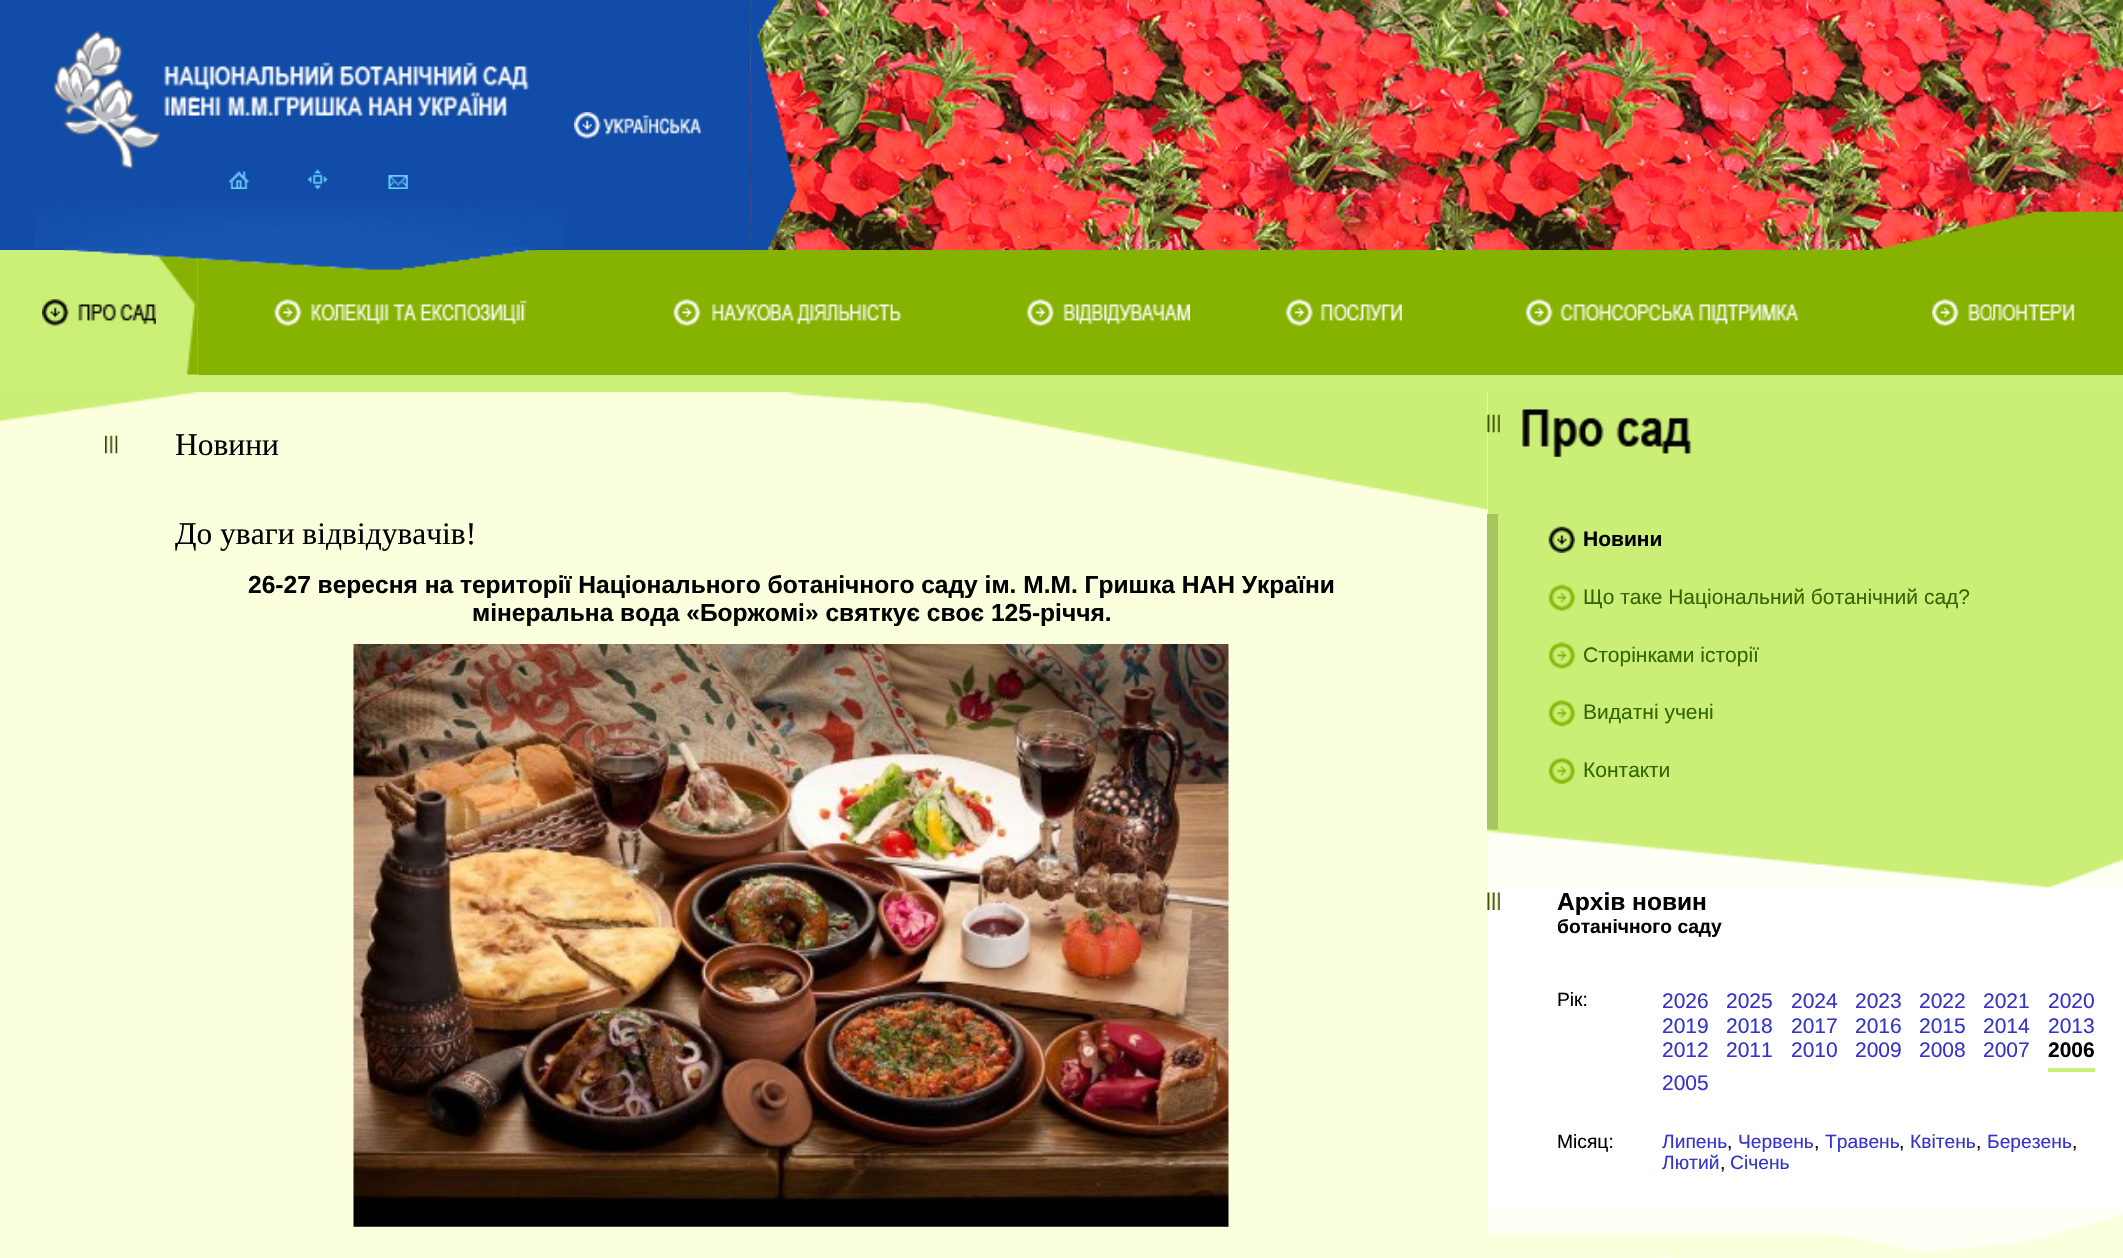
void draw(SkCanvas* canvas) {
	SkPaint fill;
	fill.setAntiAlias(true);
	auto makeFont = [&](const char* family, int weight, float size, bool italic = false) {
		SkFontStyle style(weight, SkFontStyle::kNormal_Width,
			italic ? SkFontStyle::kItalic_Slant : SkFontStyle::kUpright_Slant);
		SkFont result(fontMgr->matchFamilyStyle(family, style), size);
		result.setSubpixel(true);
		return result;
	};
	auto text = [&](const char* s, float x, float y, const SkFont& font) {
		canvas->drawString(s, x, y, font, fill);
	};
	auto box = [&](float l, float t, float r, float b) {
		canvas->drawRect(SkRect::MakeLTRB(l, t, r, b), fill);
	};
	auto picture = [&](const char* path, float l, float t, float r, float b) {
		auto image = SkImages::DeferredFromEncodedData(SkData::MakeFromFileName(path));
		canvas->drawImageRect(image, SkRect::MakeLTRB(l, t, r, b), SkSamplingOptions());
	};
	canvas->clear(0xFF114CA9);
	picture("image0.png", 34, 207, 566, 249);
	picture("image1.png", 53, 31, 529, 169);
	picture("image2.png", 229, 171, 249, 189);
	picture("image3.png", 308, 169, 328, 189);
	picture("image4.png", 388, 175, 408, 189);
	fill.setColor(0xFF86B202);
	box(198, 250, 2123, 375);
	fill.setColor(0xFFCCEF77);
	box(0, 250, 198, 375);
	picture("image10.png", 154, 256, 198, 375);
	picture("image5.png", 64, 247, 535, 270);
	picture("image6.png", 574, 112, 702, 139);
	picture("image7.png", 750, 0, 2123, 250);
	picture("image8.png", 1875, 211, 2123, 250);
	picture("image9.png", 750, 0, 797, 250);
	picture("image11.png", 42, 299, 156, 326);
	picture("image12.png", 274, 299, 527, 326);
	picture("image13.png", 673, 299, 902, 326);
	picture("image14.png", 1027, 299, 1190, 326);
	picture("image15.png", 1286, 299, 1402, 326);
	picture("image16.png", 1526, 299, 1799, 326);
	picture("image17.png", 1932, 299, 2075, 326);
	box(0, 375, 2123, 392);
	fill.setColor(0xFFFCFFDE);
	box(0, 392, 2123, 1258);
	picture("image18.png", 0, 392, 198, 422);
	picture("image19.png", 787, 392, 1488, 510);
	picture("image20.png", 105, 435, 118, 454);
	picture("image21.png", 353, 644, 1229, 1227);
	fill.setColor(0xFFCBEF76);
	box(1488, 392, 2123, 515);
	picture("image22.png", 1487, 414, 1500, 433);
	picture("image23.png", 1522, 409, 1691, 457);
	box(1498, 515, 2123, 830);
	fill.setColor(0xFFA6C55E);
	box(1487, 514, 1498, 830);
	picture("image24.png", 1548, 526, 1575, 553);
	picture("image25.png", 1548, 584, 1575, 611);
	picture("image26.png", 1548, 642, 1575, 669);
	picture("image27.png", 1548, 700, 1575, 727);
	picture("image28.png", 1548, 757, 1575, 784);
	fill.setColor(0xFFFFFFFF);
	box(1488, 887, 2123, 1208);
	picture("image29.png", 1487, 829, 2123, 888);
	picture("image30.png", 1487, 892, 1500, 910);
	fill.setColor(0xFFCBEF76);
	box(2048, 1068, 2095, 1072);
	picture("image31.png", 1487, 1207, 2123, 1253);
	picture("image32.png", 1660, 1256, 1668, 1258);
	auto font1 = makeFont("Liberation Serif", 400, 31.5f);
	fill.setColor(0xFF000000);
	text("Новини", 175, 455, font1);
	text("До уваги відвідувачів!", 175, 544, font1);
	auto font2 = makeFont("Liberation Sans", 700, 24.55f);
	text("26-27 вересня на території Національного ботанічного саду ім. М.М. Гришка НАН України", 248, 593, font2);
	text("мінеральна вода «Боржомі» святкує своє 125-річчя.", 472, 621, font2);
	auto font3 = makeFont("Liberation Sans", 700, 21);
	text("Новини", 1583, 546, font3);
	auto font4 = makeFont("Liberation Sans", 400, 21);
	fill.setColor(0xFF336600);
	text("Що таке Національний ботанічний сад?", 1583, 604, font4);
	text("Сторінками історії", 1583, 662, font4);
	text("Видатні учені", 1583, 719, font4);
	text("Контакти", 1583, 777, font4);
	fill.setColor(0xFF000000);
	text("Архів новин", 1557, 910, font2);
	auto font5 = makeFont("Liberation Sans", 700, 19.25f);
	text("ботанічного саду", 1557, 933, font5);
	auto font6 = makeFont("Liberation Sans", 400, 19.25f);
	text("Рiк:", 1557, 1006, font6);
	fill.setColor(0xFF3333CC);
	text("2026", 1662, 1008, font4);
	text("2025", 1726, 1008, font4);
	text("2024", 1791, 1008, font4);
	text("2023", 1855, 1008, font4);
	text("2022", 1919, 1008, font4);
	text("2021", 1983, 1008, font4);
	text("2020", 2048, 1008, font4);
	text("2019", 1662, 1033, font4);
	text("2018", 1726, 1033, font4);
	text("2017", 1791, 1033, font4);
	text("2016", 1855, 1033, font4);
	text("2015", 1919, 1033, font4);
	text("2014", 1983, 1033, font4);
	text("2013", 2048, 1033, font4);
	text("2012", 1662, 1057, font4);
	text("2011", 1726, 1057, font4);
	text("2010", 1791, 1057, font4);
	text("2009", 1855, 1057, font4);
	text("2008", 1919, 1057, font4);
	text("2007", 1983, 1057, font4);
	fill.setColor(0xFF000000);
	text("2006", 2048, 1057, font3);
	fill.setColor(0xFF3333CC);
	text("2005", 1662, 1090, font4);
	fill.setColor(0xFF000000);
	text("Мiсяц:", 1557, 1148, font6);
	fill.setColor(0xFF3333CC);
	text("Липень", 1662, 1148, font6);
	fill.setColor(0xFF000000);
	text(",", 1727, 1148, font6);
	fill.setColor(0xFF3333CC);
	text("Червень", 1738, 1148, font6);
	fill.setColor(0xFF000000);
	text(",", 1814, 1148, font6);
	fill.setColor(0xFF3333CC);
	text("Травень", 1825, 1148, font6);
	fill.setColor(0xFF000000);
	text(",", 1899, 1148, font6);
	fill.setColor(0xFF3333CC);
	text("Квітень", 1910, 1148, font6);
	fill.setColor(0xFF000000);
	text(",", 1976, 1148, font6);
	fill.setColor(0xFF3333CC);
	text("Березень", 1987, 1148, font6);
	fill.setColor(0xFF000000);
	text(",", 2072, 1148, font6);
	fill.setColor(0xFF3333CC);
	text("Лютий", 1662, 1169, font6);
	fill.setColor(0xFF000000);
	text(",", 1720, 1169, font6);
	fill.setColor(0xFF3333CC);
	text("Січень", 1730, 1169, font6);
}
